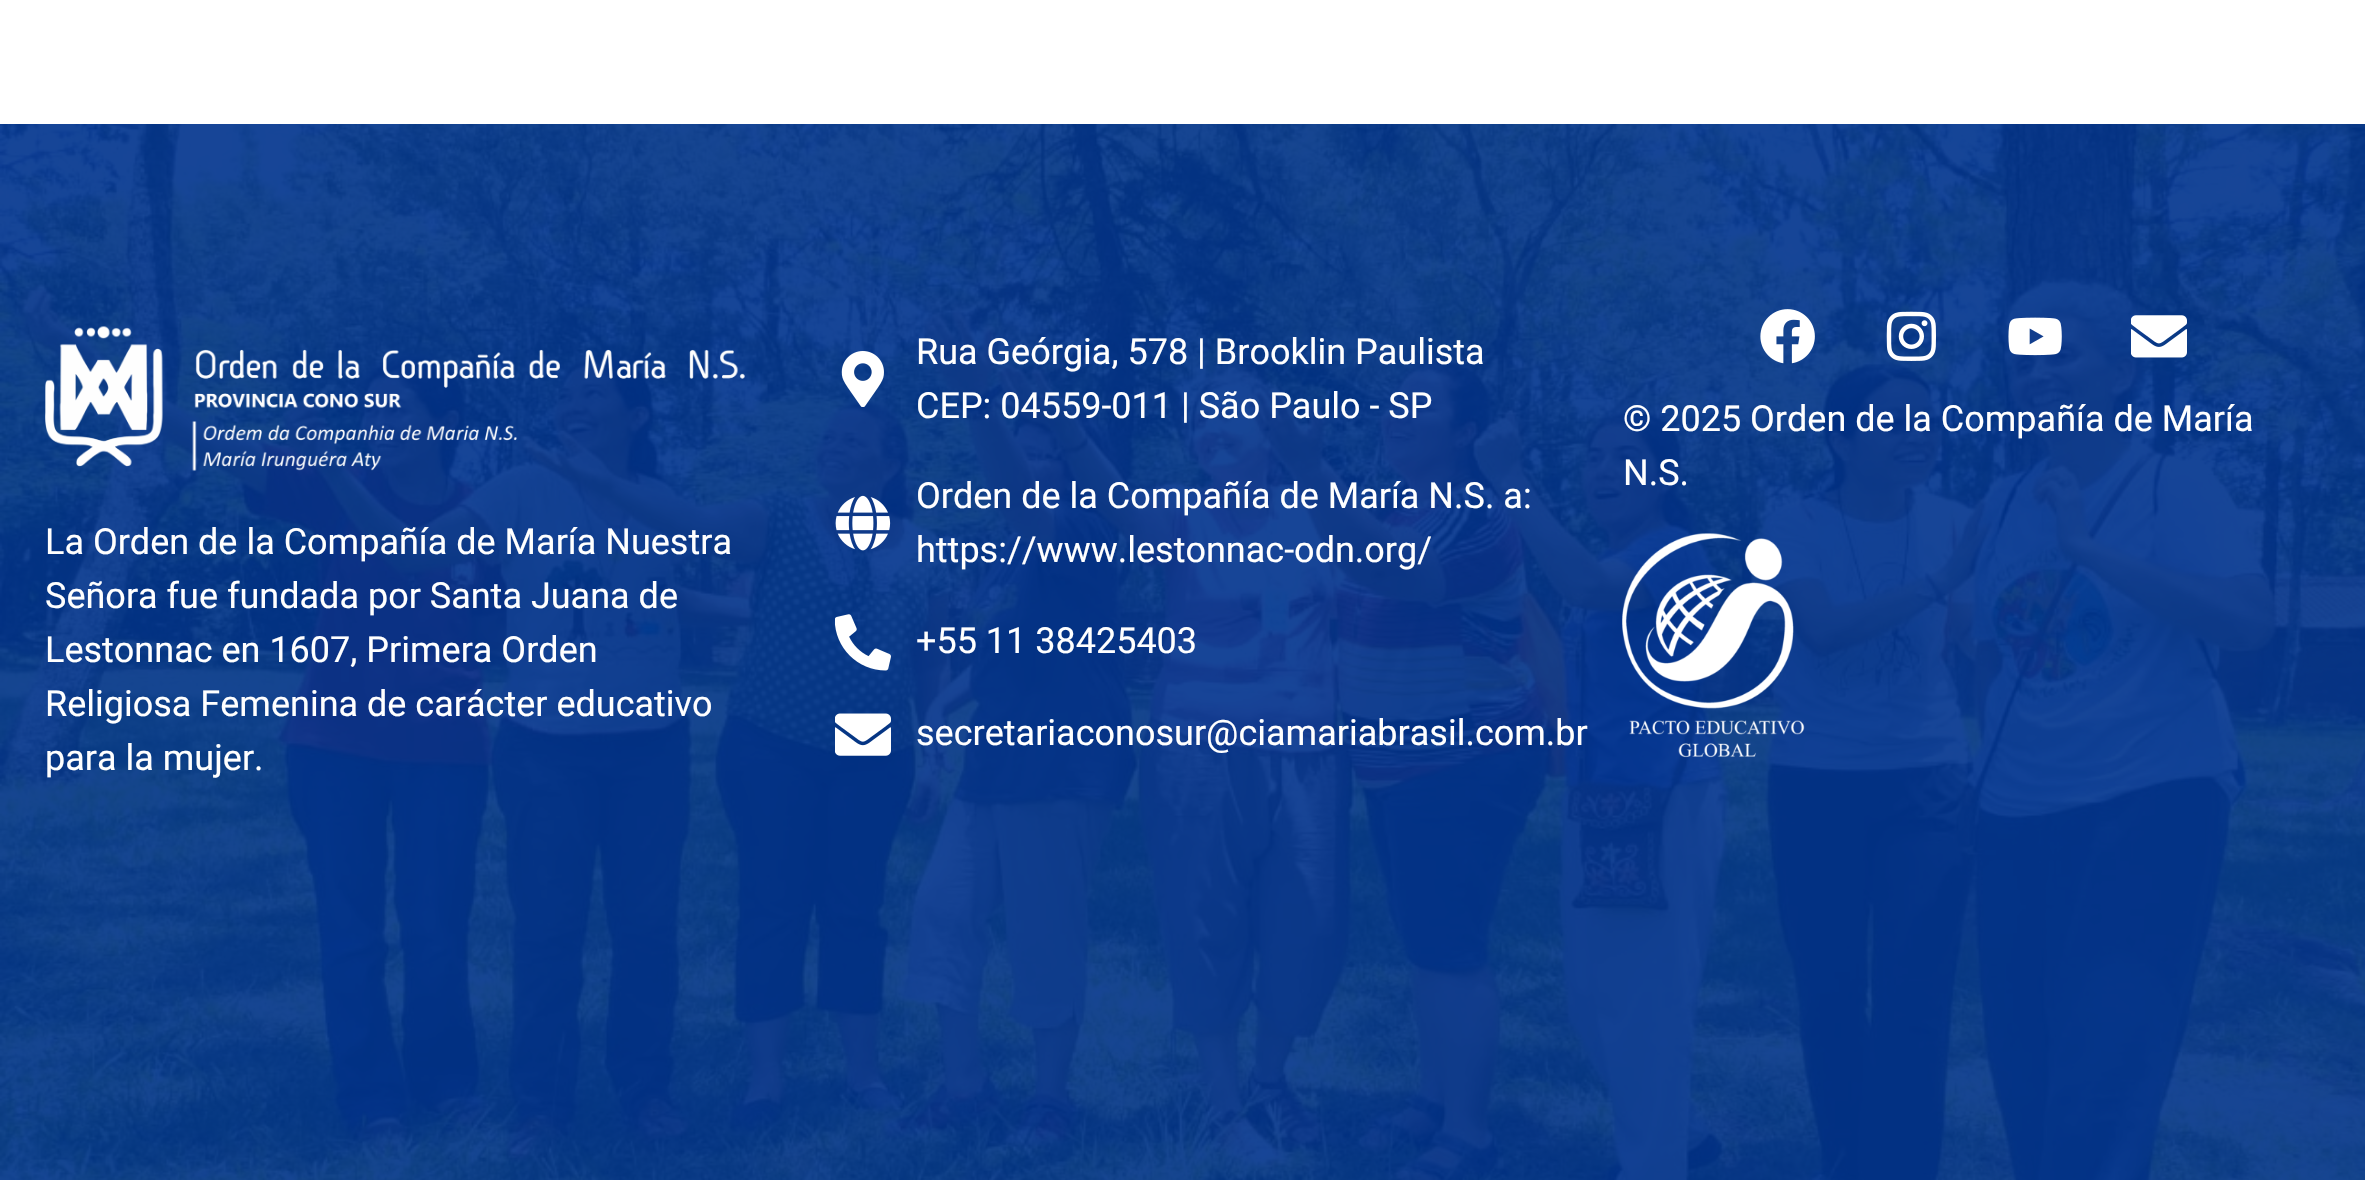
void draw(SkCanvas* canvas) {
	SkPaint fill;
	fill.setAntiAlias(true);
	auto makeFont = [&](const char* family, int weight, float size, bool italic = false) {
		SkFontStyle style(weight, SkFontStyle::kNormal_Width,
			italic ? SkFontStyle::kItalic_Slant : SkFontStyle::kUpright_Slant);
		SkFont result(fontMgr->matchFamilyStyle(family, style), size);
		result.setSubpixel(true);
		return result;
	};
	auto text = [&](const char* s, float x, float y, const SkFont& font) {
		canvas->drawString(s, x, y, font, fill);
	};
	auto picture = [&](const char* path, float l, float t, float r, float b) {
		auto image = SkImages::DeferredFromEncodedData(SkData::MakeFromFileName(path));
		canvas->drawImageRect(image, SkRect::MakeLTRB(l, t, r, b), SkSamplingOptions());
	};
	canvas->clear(0xFFFFFFFF);
	picture("image0.png", 0, 124, 2365, 1180);
	picture("image1.png", 841, 351, 884, 407);
	picture("image2.png", 835, 495, 891, 551);
	picture("image3.png", 835, 614, 891, 671);
	picture("image4.png", 835, 713, 891, 756);
	picture("image5.png", 1760, 309, 1815, 364);
	picture("image6.png", 1886, 311, 1936, 361);
	picture("image7.png", 2008, 317, 2062, 356);
	picture("image8.png", 2131, 315, 2187, 358);
	picture("image9.png", 1622, 533, 1805, 758);
	picture("image10.png", 45, 326, 745, 471);
	auto font1 = makeFont("Roboto", 400, 36);
	fill.setColor(0xFFFFFFFF);
	text("Rua Geórgia, 578 | Brooklin Paulista", 916, 364, font1);
	text("CEP: 04559-011 | São Paulo - SP", 916, 418, font1);
	text("Orden de la Compañía de María N.S. a:", 916, 508, font1);
	text("https://www.lestonnac-odn.org/", 916, 562, font1);
	text("+55 11 38425403", 916, 653, font1);
	text("secretariaconosur@ciamariabrasil.com.br", 916, 745, font1);
	text("© 2025 Orden de la Compañía de María", 1623, 431, font1);
	text("N.S.", 1623, 485, font1);
	text("La Orden de la Compañía de María Nuestra", 45, 554, font1);
	text("Señora fue fundada por Santa Juana de", 45, 608, font1);
	text("Lestonnac en 1607, Primera Orden", 45, 662, font1);
	text("Religiosa Femenina de carácter educativo", 45, 716, font1);
	text("para la mujer.", 45, 770, font1);
}
